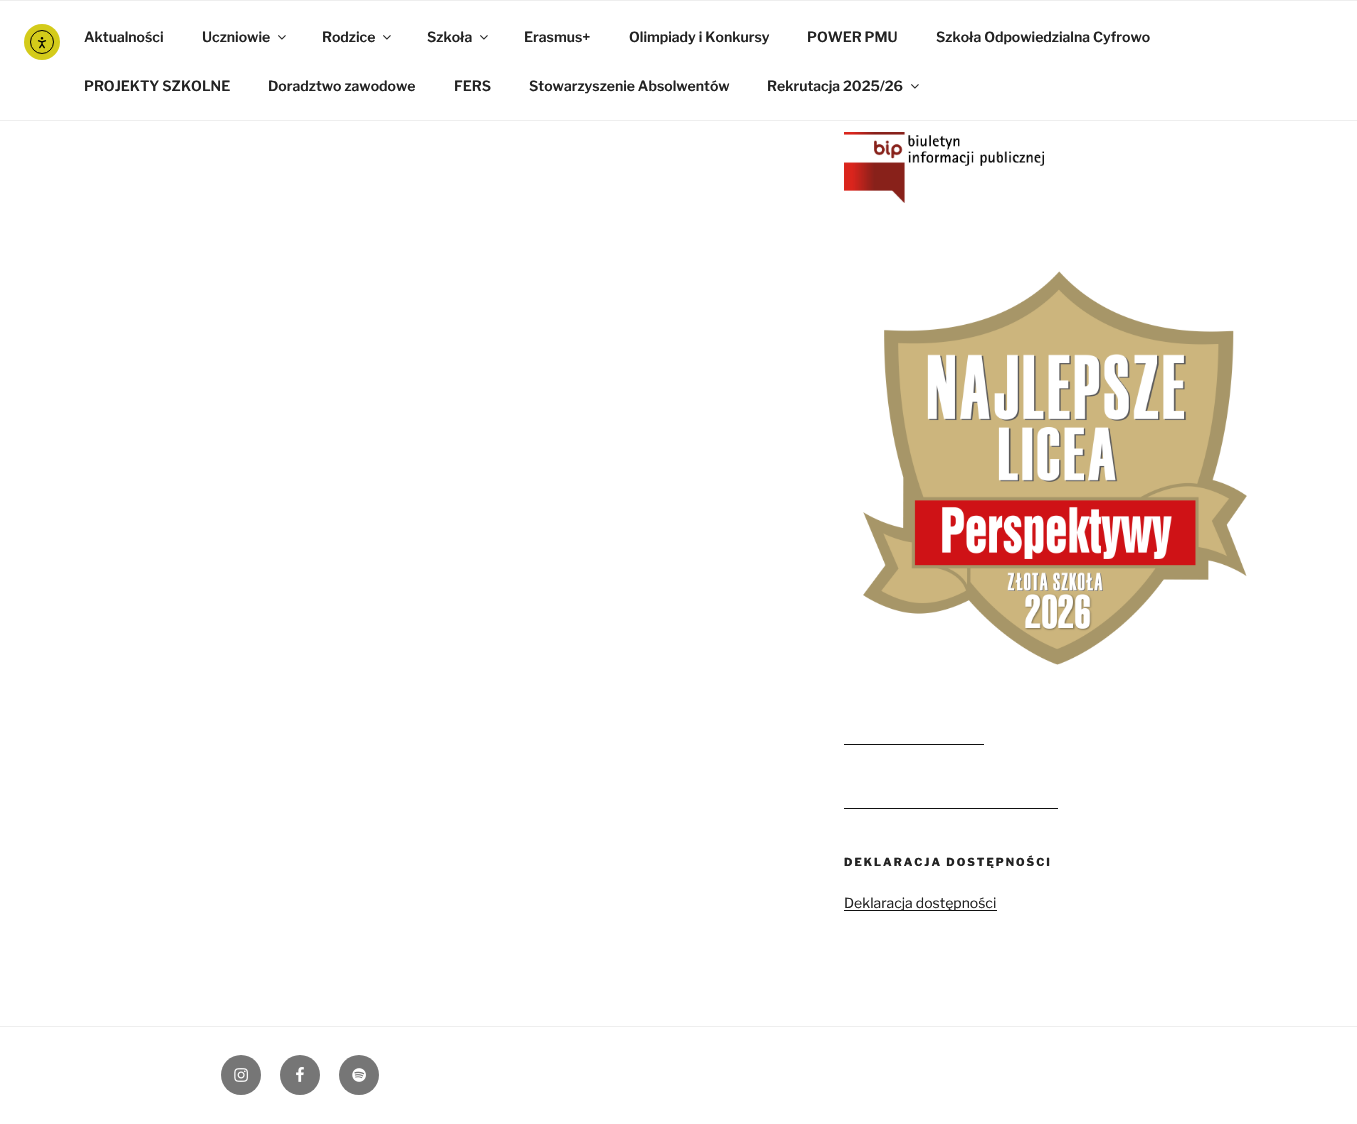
void draw(SkCanvas* canvas) {
	SkPaint fill;
	fill.setAntiAlias(true);
	auto makeFont = [&](const char* family, int weight, float size, bool italic = false) {
		SkFontStyle style(weight, SkFontStyle::kNormal_Width,
			italic ? SkFontStyle::kItalic_Slant : SkFontStyle::kUpright_Slant);
		SkFont result(fontMgr->matchFamilyStyle(family, style), size);
		result.setSubpixel(true);
		return result;
	};
	auto text = [&](const char* s, float x, float y, const SkFont& font) {
		canvas->drawString(s, x, y, font, fill);
	};
	auto spacedText = [&](const char* s, float x, float y, const SkFont& font, const SkPaint& ink, float letter, float word) {
		std::vector<SkGlyphID> glyphs(font.countText(s, strlen(s), SkTextEncoding::kUTF8));
		std::vector<float> xs(glyphs.size());
		font.textToGlyphs(s, strlen(s), SkTextEncoding::kUTF8, glyphs);
		font.getXPos(glyphs, xs, x);
		float extra = 0;
		for (size_t i = 0; i < glyphs.size(); i++) {
			xs[i] += extra;
			extra += letter + word * (glyphs[i] == font.unicharToGlyph(' '));
		}
		canvas->drawTextBlob(SkTextBlob::MakeFromPosHGlyphs(glyphs, xs, y, font), 0, 0, ink);
	};
	auto box = [&](float l, float t, float r, float b) {
		canvas->drawRect(SkRect::MakeLTRB(l, t, r, b), fill);
	};
	auto picture = [&](const char* path, float l, float t, float r, float b) {
		auto image = SkImages::DeferredFromEncodedData(SkData::MakeFromFileName(path));
		canvas->drawImageRect(image, SkRect::MakeLTRB(l, t, r, b), SkSamplingOptions());
	};
	canvas->clear(0xFFFFFFFF);
	fill.setColor(0xFFD4CB1A);
	canvas->drawCircle(42, 42, 18, fill);
	fill.setStyle(SkPaint::kStroke_Style);
	fill.setStrokeWidth(1);
	fill.setColor(0xFF000000);
	canvas->drawCircle(42, 42, 11.5f, fill);
	picture("image0.png", 37, 37, 47, 49);
	fill.setStyle(SkPaint::kFill_Style);
	fill.setColor(0xFFEEEEEE);
	box(0, 0, 1357, 1);
	box(0, 120, 1357, 121);
	picture("image1.png", 278, 35, 286, 40);
	picture("image1.png", 383, 35, 391, 40);
	picture("image1.png", 480, 35, 488, 40);
	picture("image1.png", 911, 84, 919, 89);
	picture("image2.png", 844, 132, 1044, 203);
	picture("image3.png", 863, 271, 1247, 665);
	fill.setColor(0xFF0F0F0F);
	box(844, 744, 984, 745);
	box(844, 808, 1058, 809);
	box(844, 910, 997, 911);
	fill.setColor(0xFFEEEEEE);
	box(0, 1026, 1357, 1027);
	fill.setColor(0xFF767676);
	canvas->drawCircle(241, 1075, 20, fill);
	picture("image4.png", 234, 1068, 248, 1082);
	canvas->drawCircle(300, 1075, 20, fill);
	picture("image5.png", 296, 1067, 304, 1082);
	canvas->drawCircle(359, 1075, 20, fill);
	picture("image6.png", 352, 1068, 366, 1082);
	auto font1 = makeFont("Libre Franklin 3", 100, 14);
	fill.setColor(0xFF222222);
	text("Aktualności", 84, 42, font1);
	text("Uczniowie", 202, 42, font1);
	text("Rodzice", 322, 42, font1);
	text("Szkoła", 427, 42, font1);
	text("Erasmus+", 524, 42, font1);
	text("Olimpiady i Konkursy", 629, 42, font1);
	text("POWER PMU", 807, 42, font1);
	text("Szkoła Odpowiedzialna Cyfrowo", 936, 42, font1);
	text("PROJEKTY SZKOLNE", 84, 91, font1);
	text("Doradztwo zawodowe", 268, 91, font1);
	text("FERS", 454, 91, font1);
	text("Stowarzyszenie Absolwentów", 529, 91, font1);
	text("Rekrutacja 2025/26", 767, 91, font1);
	auto font2 = makeFont("Libre Franklin", 100, 11);
	spacedText("DEKLARACJA DOSTĘPNOŚCI", 844, 866, font2, fill, 2, 0);
	auto font3 = makeFont("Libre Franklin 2", 100, 14);
	text("Deklaracja dostępności", 844, 908, font3);
}
